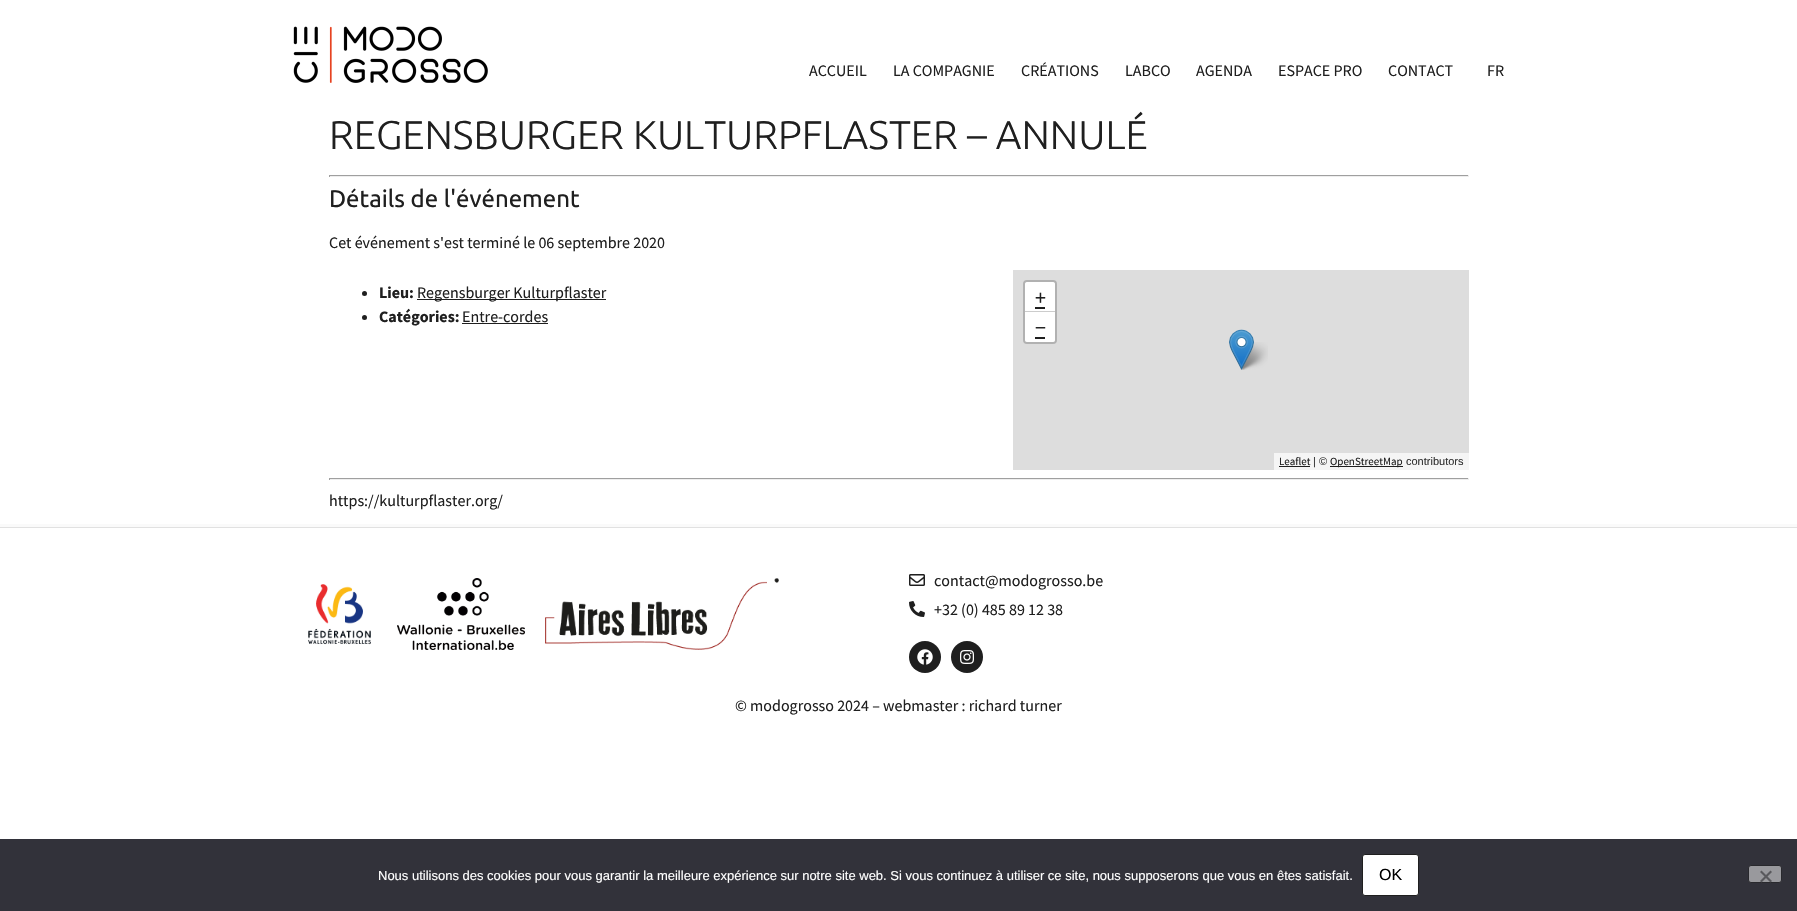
void draw(SkCanvas* canvas) {
	SkPaint fill;
	fill.setAntiAlias(true);
	auto makeFont = [&](const char* family, int weight, float size, bool italic = false) {
		SkFontStyle style(weight, SkFontStyle::kNormal_Width,
			italic ? SkFontStyle::kItalic_Slant : SkFontStyle::kUpright_Slant);
		SkFont result(fontMgr->matchFamilyStyle(family, style), size);
		result.setSubpixel(true);
		return result;
	};
	auto text = [&](const char* s, float x, float y, const SkFont& font) {
		canvas->drawString(s, x, y, font, fill);
	};
	auto box = [&](float l, float t, float r, float b) {
		canvas->drawRect(SkRect::MakeLTRB(l, t, r, b), fill);
	};
	auto picture = [&](const char* path, float l, float t, float r, float b) {
		auto image = SkImages::DeferredFromEncodedData(SkData::MakeFromFileName(path));
		canvas->drawImageRect(image, SkRect::MakeLTRB(l, t, r, b), SkSamplingOptions());
	};
	canvas->clear(0xFFFFFFFF);
	fill.setColor(0xFFFAFAFA);
	box(0, 524, 1797, 527);
	picture("image0.png", 293, 26, 488, 83);
	fill.setColor(0xFF9F9F9F);
	box(329, 175, 1469, 176);
	fill.setColor(0xFFEEEEEE);
	box(1468, 175, 1469, 177);
	box(329, 176, 1469, 177);
	fill.setColor(0xFF9F9F9F);
	box(329, 175, 330, 177);
	fill.setColor(0xFF1F1F1F);
	canvas->drawCircle(364.5f, 293.5f, 2.5f, fill);
	box(417, 299, 606, 300);
	canvas->drawCircle(364.5f, 317.5f, 2.5f, fill);
	box(462, 323, 548, 324);
	fill.setColor(0xFFDDDDDD);
	box(1013, 270, 1469, 470);
	fill.setStyle(SkPaint::kStroke_Style);
	fill.setStrokeWidth(2);
	fill.setColor(0xFFB1B1B1);
	canvas->drawRoundRect(SkRect::MakeLTRB(1024, 281, 1056, 343), 3, 3, fill);
	fill.setStyle(SkPaint::kFill_Style);
	fill.setColor(0xFFFFFFFF);
	canvas->drawPath(SkPathBuilder().moveTo(1027, 282).lineTo(1053, 282).cubicTo(1054, 282, 1055, 283, 1055, 284).lineTo(1055, 312).lineTo(1025, 312).lineTo(1025, 284).cubicTo(1025, 283, 1026, 282, 1027, 282).close().detach(), fill);
	fill.setColor(0xFFCCCCCC);
	box(1025, 311, 1055, 312);
	fill.setColor(0xFF1F1F1F);
	box(1035, 307, 1045, 309);
	fill.setColor(0xFFFFFFFF);
	canvas->drawPath(SkPathBuilder().moveTo(1025, 312).lineTo(1055, 312).lineTo(1055, 340).cubicTo(1055, 341, 1054, 342, 1053, 342).lineTo(1027, 342).cubicTo(1026, 342, 1025, 341, 1025, 340).close().detach(), fill);
	fill.setColor(0xFF1F1F1F);
	box(1035, 337, 1045, 339);
	fill.setColor(0xFFF5F5F5);
	box(1274, 453, 1469, 470);
	fill.setColor(0xFF1F1F1F);
	box(1279, 466, 1310, 467);
	box(1330, 466, 1403, 467);
	picture("image2.png", 1239, 342, 1268, 370);
	picture("image1.png", 1229, 329, 1254, 370);
	fill.setColor(0xFF9F9F9F);
	box(329, 478, 1469, 479);
	fill.setColor(0xFFEEEEEE);
	box(1468, 478, 1469, 480);
	box(329, 479, 1469, 480);
	fill.setColor(0xFF9F9F9F);
	box(329, 478, 330, 480);
	fill.setColor(0xFFE1E1E1);
	box(0, 527, 1797, 528);
	picture("image3.png", 308, 584, 371, 645);
	picture("image4.png", 397, 578, 525, 650);
	picture("image5.png", 545, 578, 779, 650);
	picture("image6.png", 909, 574, 925, 586);
	picture("image7.png", 909, 601, 925, 617);
	fill.setColor(0xFF1F1F1F);
	canvas->drawCircle(925, 657, 16, fill);
	picture("image8.png", 917, 649, 933, 665);
	canvas->drawCircle(967, 657, 16, fill);
	picture("image9.png", 960, 650, 974, 664);
	fill.setColor(0xFF32323A);
	box(0, 839, 1797, 911);
	fill.setColor(0xFFFFFFFF);
	canvas->drawRoundRect(SkRect::MakeLTRB(1362.5f, 854.5f, 1418.5f, 895.5f), 2.5f, 2.5f, fill);
	fill.setStyle(SkPaint::kStroke_Style);
	fill.setStrokeWidth(1);
	fill.setColor(0xFF1F1F1F);
	canvas->drawRoundRect(SkRect::MakeLTRB(1362.5f, 854.5f, 1418.5f, 895.5f), 2.5f, 2.5f, fill);
	fill.setStyle(SkPaint::kFill_Style);
	fill.setColor(0xFF99999D);
	canvas->drawRoundRect(SkRect::MakeLTRB(1748.5f, 865.5f, 1781.5f, 882.5f), 2.5f, 2.5f, fill);
	fill.setStyle(SkPaint::kStroke_Style);
	fill.setColor(0xFF29292D);
	canvas->drawRoundRect(SkRect::MakeLTRB(1748.5f, 865.5f, 1781.5f, 882.5f), 2.5f, 2.5f, fill);
	fill.setStyle(SkPaint::kFill_Style);
	fill.setColor(0xFF59595D);
	canvas->drawPath(SkPathBuilder().moveTo(1770.5f, 870.5f).lineTo(1772, 872).lineTo(1761.5f, 882.5f).lineTo(1760, 881).close().detach(), fill);
	canvas->drawPath(SkPathBuilder().moveTo(1760, 872).lineTo(1761.5f, 870.5f).lineTo(1772, 881).lineTo(1770.5f, 882.5f).close().detach(), fill);
	auto font1 = makeFont("Source Sans Pro", 400, 16);
	fill.setColor(0xFF1F1F1F);
	text("ACCUEIL", 809, 76, font1);
	text("LA COMPAGNIE", 893, 76, font1);
	text("CRÉATIONS", 1021, 76, font1);
	text("LABCO", 1125, 76, font1);
	text("AGENDA", 1196, 76, font1);
	text("ESPACE PRO", 1278, 76, font1);
	text("CONTACT", 1388, 76, font1);
	text("FR", 1487, 76, font1);
	auto font2 = makeFont("Ubuntu", 300, 40);
	text("REGENSBURGER KULTURPFLASTER – ANNULÉ", 329, 149, font2);
	auto font3 = makeFont("Ubuntu", 400, 24);
	text("Détails de l'événement", 329, 207, font3);
	text("Cet événement s'est terminé le 06 septembre 2020", 329, 248, font1);
	auto font4 = makeFont("Source Sans Pro", 700, 16);
	text("Lieu:", 379, 298, font4);
	text("Regensburger Kulturpflaster", 417, 298, font1);
	text("Catégories:", 379, 322, font4);
	text("Entre-cordes", 462, 322, font1);
	auto font5 = makeFont("Source Sans Pro", 400, 22);
	text("+", 1035, 305, font5);
	text("−", 1035, 335, font5);
	auto font6 = makeFont("Source Sans Pro", 400, 11);
	text("Leaflet", 1279, 465, font6);
	auto font7 = makeFont("Liberation Sans", 400, 11);
	fill.setColor(0xFF333333);
	text("| ©", 1313, 465, font7);
	fill.setColor(0xFF1F1F1F);
	text("OpenStreetMap", 1330, 465, font6);
	fill.setColor(0xFF333333);
	text("contributors", 1406, 465, font7);
	fill.setColor(0xFF1F1F1F);
	text("https://kulturpflaster.org/", 329, 506, font1);
	text("contact@modogrosso.be", 934, 586, font1);
	text("+32 (0) 485 89 12 38", 934, 615, font1);
	text("© modogrosso 2024 – webmaster : richard turner", 735, 711, font1);
	auto font8 = makeFont("Liberation Sans", 400, 13);
	fill.setColor(0xFFFFFFFF);
	text("Nous utilisons des cookies pour vous garantir la meilleure expérience sur notre site web. Si vous continuez à utiliser ce site, nous supposerons que vous en êtes satisfait.", 378, 880, font8);
	auto font9 = makeFont("Liberation Sans", 400, 16);
	fill.setColor(0xFF000000);
	text("OK", 1379, 880, font9);
}
